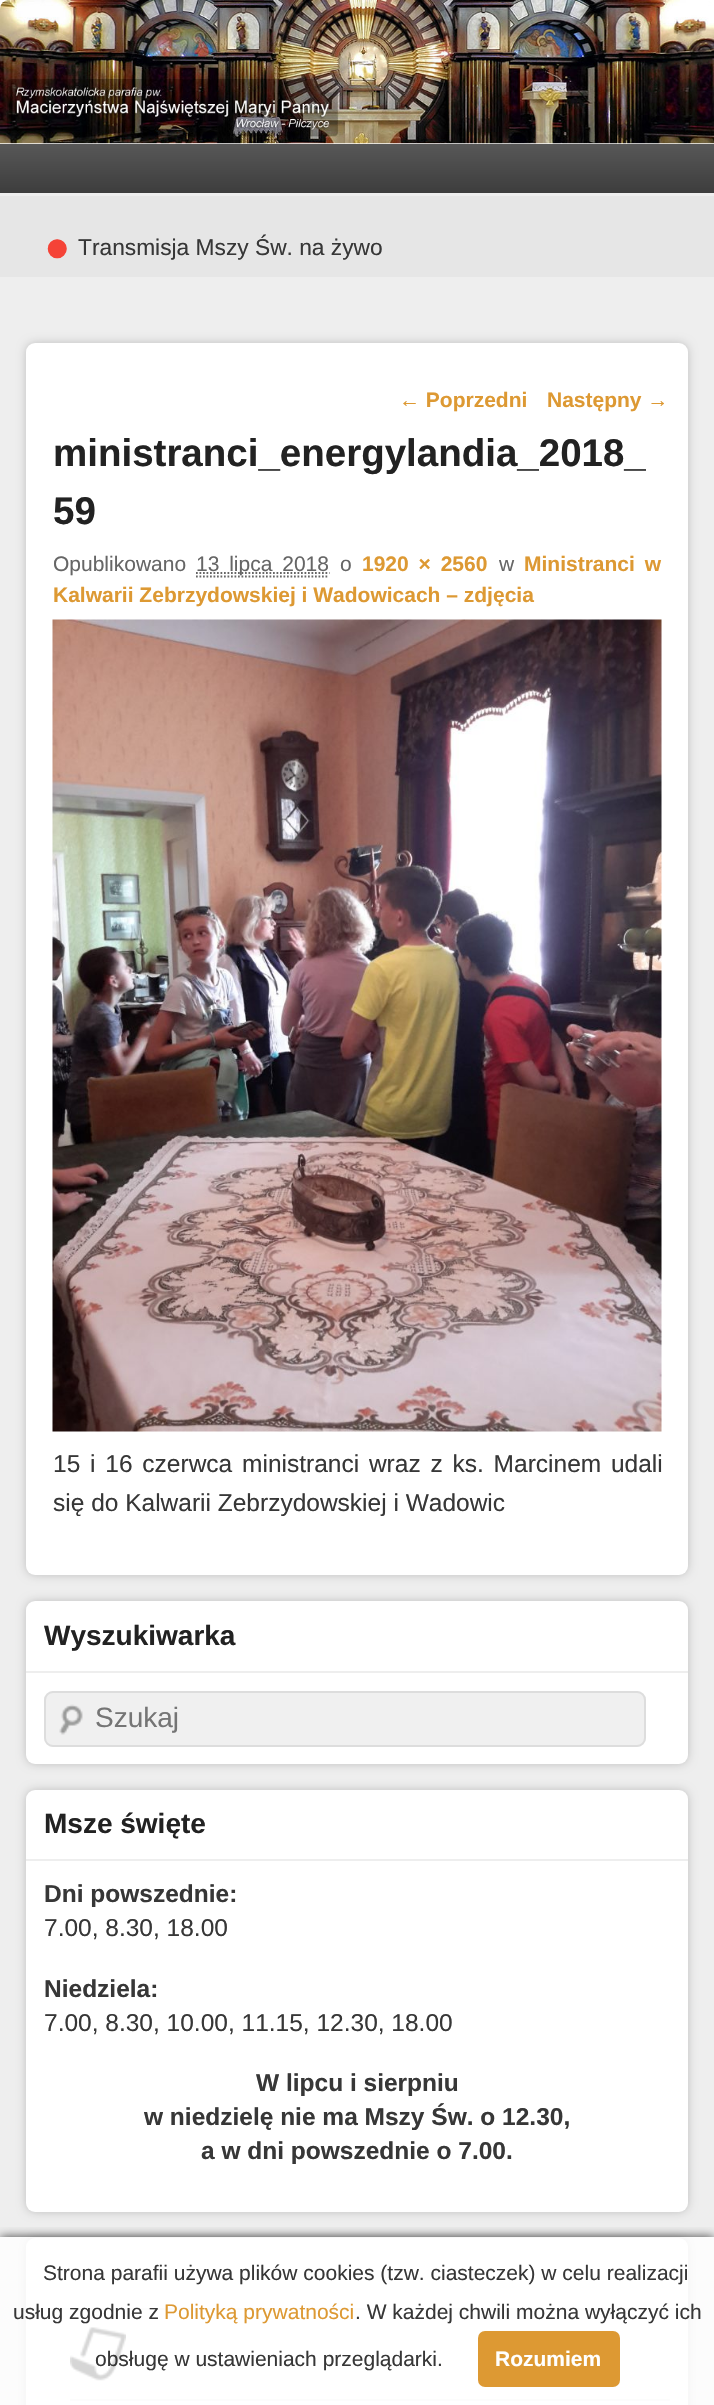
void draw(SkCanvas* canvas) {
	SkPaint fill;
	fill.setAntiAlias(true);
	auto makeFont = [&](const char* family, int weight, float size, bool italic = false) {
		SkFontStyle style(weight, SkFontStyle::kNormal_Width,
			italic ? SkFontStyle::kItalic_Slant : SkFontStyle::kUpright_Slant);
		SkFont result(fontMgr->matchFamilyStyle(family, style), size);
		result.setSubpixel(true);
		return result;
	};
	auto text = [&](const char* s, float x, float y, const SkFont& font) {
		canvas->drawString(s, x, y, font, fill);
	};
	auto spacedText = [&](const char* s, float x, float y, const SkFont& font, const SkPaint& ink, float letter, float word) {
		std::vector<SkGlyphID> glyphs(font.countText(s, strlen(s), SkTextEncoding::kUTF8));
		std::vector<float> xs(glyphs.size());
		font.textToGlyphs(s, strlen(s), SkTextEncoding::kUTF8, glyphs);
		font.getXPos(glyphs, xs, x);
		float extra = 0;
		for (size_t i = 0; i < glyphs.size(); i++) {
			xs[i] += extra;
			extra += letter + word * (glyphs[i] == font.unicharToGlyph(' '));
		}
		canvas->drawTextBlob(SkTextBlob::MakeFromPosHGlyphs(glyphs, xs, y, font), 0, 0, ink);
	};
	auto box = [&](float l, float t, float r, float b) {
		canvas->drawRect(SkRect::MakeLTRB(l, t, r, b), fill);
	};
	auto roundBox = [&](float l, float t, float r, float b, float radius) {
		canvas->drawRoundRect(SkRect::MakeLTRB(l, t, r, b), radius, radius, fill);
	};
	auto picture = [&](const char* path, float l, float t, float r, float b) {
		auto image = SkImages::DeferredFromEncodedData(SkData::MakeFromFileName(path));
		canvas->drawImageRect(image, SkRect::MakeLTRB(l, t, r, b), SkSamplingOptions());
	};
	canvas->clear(0xFFEEEEEE);
	fill.setColor(0xFFFFFFFF);
	box(0, 0, 714, 144);
	picture("image0.png", 0, 0, 714, 144);
	{
		const SkColor colors[] = {0xFF585858, 0xFF3D3D3D};
		const float stops[] = {0, 1};
		const SkPoint ends[] = {{357, 143}, {357, 193}};
		fill.setShader(SkGradientShader::MakeLinear(ends, colors, stops, 2, SkTileMode::kClamp));
		fill.setAlpha(255);
	}
	box(0, 144, 714, 193);
	fill.setShader(nullptr);
	fill.setColor(0xFFE6E6E6);
	box(0, 196, 714, 277);
	fill.setColor(0x33000000);
	fill.setMaskFilter(SkMaskFilter::MakeBlur(kNormal_SkBlurStyle, 5));
	canvas->drawRoundRect(SkRect::MakeLTRB(26, 343, 688, 1575), 9, 9, fill);
	fill.setMaskFilter(nullptr);
	fill.setColor(0xFFFFFFFF);
	roundBox(26, 343, 688, 1575, 9);
	fill.setStyle(SkPaint::kStroke_Style);
	fill.setStrokeWidth(1.8f);
	fill.setColor(0xFF666666);
	fill.setPathEffect(SkDashPathEffect::Make({{1.75f, 1.75f}}, 0));
	canvas->drawPath(SkPathBuilder().moveTo(196, 576.5f).lineTo(329, 576.5f).detach(), fill);
	fill.setPathEffect(nullptr);
	fill.setPathEffect(SkDashPathEffect::Make({{1.75f, 1.75f}}, 0));
	canvas->drawPath(SkPathBuilder().moveTo(196, 573).lineTo(329.5f, 573).detach(), fill);
	fill.setPathEffect(nullptr);
	picture("image1.png", 52, 619, 662, 1432);
	fill.setStyle(SkPaint::kFill_Style);
	fill.setColor(0x33000000);
	fill.setMaskFilter(SkMaskFilter::MakeBlur(kNormal_SkBlurStyle, 5));
	canvas->drawRoundRect(SkRect::MakeLTRB(26, 1601, 688, 1764), 9, 9, fill);
	fill.setMaskFilter(nullptr);
	fill.setColor(0xFFFFFFFF);
	roundBox(26, 1601, 688, 1764, 9);
	fill.setColor(0xFFEEEEEE);
	box(26, 1671, 688, 1673);
	fill.setColor(0xFFF0F0F0);
	roundBox(44, 1691, 646, 1747, 9);
	picture("image2.png", 59, 1704, 83, 1735);
	fill.setStyle(SkPaint::kStroke_Style);
	fill.setStrokeWidth(2);
	fill.setColor(0xFFDDDDDD);
	canvas->drawRoundRect(SkRect::MakeLTRB(45, 1692, 645, 1746), 8, 8, fill);
	fill.setStyle(SkPaint::kFill_Style);
	fill.setColor(0x33000000);
	fill.setMaskFilter(SkMaskFilter::MakeBlur(kNormal_SkBlurStyle, 5));
	canvas->drawRoundRect(SkRect::MakeLTRB(26, 1790, 688, 2212), 9, 9, fill);
	fill.setMaskFilter(nullptr);
	fill.setColor(0xFFFFFFFF);
	roundBox(26, 1790, 688, 2212, 9);
	fill.setColor(0xFFEEEEEE);
	box(26, 1859, 688, 1861);
	fill.setColor(0x33000000);
	fill.setMaskFilter(SkMaskFilter::MakeBlur(kNormal_SkBlurStyle, 5));
	canvas->drawRoundRect(SkRect::MakeLTRB(26, 2238, 688, 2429), 9, 9, fill);
	fill.setMaskFilter(nullptr);
	fill.setColor(0xFFFFFFFF);
	roundBox(26, 2238, 688, 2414, 9);
	fill.setColor(0xFFEEEEEE);
	box(26, 2308, 688, 2310);
	picture("image3.png", 70, 2327, 126, 2381);
	box(70, 2399, 670, 2401);
	canvas->save();
	canvas->clipRect(SkRect::MakeLTRB(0, 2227, 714, 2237));
	fill.setColor(0xFF404040);
	fill.setMaskFilter(SkMaskFilter::MakeBlur(kNormal_SkBlurStyle, 5));
	canvas->drawRect(SkRect::MakeLTRB(0, 2237, 714, 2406), fill);
	fill.setMaskFilter(nullptr);
	canvas->restore();
	fill.setColor(0xCCFFFFFF);
	box(0, 2237, 714, 2405);
	fill.setColor(0xFFDD9933);
	roundBox(478, 2331, 620, 2387, 7);
	auto font1 = makeFont("Liberation Sans", 400, 70);
	fill.setColor(0xFFF54337);
	text("•", 45, 272, font1);
	auto font2 = makeFont("Liberation Sans", 400, 22.75f);
	fill.setColor(0xFF373737);
	text("Transmisja Mszy Św. na żywo", 78, 255, font2);
	auto font3 = makeFont("Liberation Sans", 700, 21);
	fill.setColor(0xFFDD9933);
	text("← Poprzedni", 399, 407, font3);
	text("Następny →", 547, 407, font3);
	auto font4 = makeFont("Liberation Sans", 700, 38.5f);
	fill.setColor(0xFF222222);
	text("ministranci_energylandia_2018_", 53, 466, font4);
	text("59", 53, 524, font4);
	auto font5 = makeFont("Liberation Sans", 400, 21);
	fill.setColor(0xFF666666);
	text("Opublikowano", 53, 571, font5);
	spacedText("13 lipca 2018", 196, 571, font5, fill, 0, 4);
	text("o", 340, 571, font5);
	fill.setColor(0xFFDD9933);
	spacedText("1920 × 2560", 362, 571, font3, fill, 0, 4);
	fill.setColor(0xFF666666);
	text("w", 499, 571, font5);
	fill.setColor(0xFFDD9933);
	spacedText("Ministranci w", 524, 571, font3, fill, 0, 4);
	text("Kalwarii Zebrzydowskiej i Wadowicach – zdjęcia", 53, 602, font3);
	auto font6 = makeFont("Liberation Sans", 400, 24.5f);
	fill.setColor(0xFF373737);
	spacedText("15 i 16 czerwca ministranci wraz z ks. Marcinem udali", 53, 1472, font6, fill, 0, 3);
	text("się do Kalwarii Zebrzydowskiej i Wadowic", 53, 1511, font6);
	auto font7 = makeFont("Liberation Sans", 700, 28);
	fill.setColor(0xFF222222);
	text("Wyszukiwarka", 44, 1645, font7);
	auto font8 = makeFont("Liberation Sans", 400, 28);
	fill.setColor(0xFF757575);
	text("Szukaj", 95, 1727, font8);
	fill.setColor(0xFF222222);
	text("Msze święte", 44, 1833, font7);
	auto font9 = makeFont("Liberation Sans", 700, 24.5f);
	fill.setColor(0xFF373737);
	text("Dni powszednie:", 44, 1902, font9);
	text("7.00, 8.30, 18.00", 44, 1936, font6);
	text("Niedziela:", 44, 1997, font9);
	text("7.00, 8.30, 10.00, 11.15, 12.30, 18.00", 44, 2031, font6);
	text("W lipcu i sierpniu", 256, 2091, font9);
	text("w niedzielę nie ma Mszy Św. o 12.30,", 144, 2125, font9);
	text("a w dni powszednie o 7.00.", 201, 2159, font9);
	text("Strona parafii używa plików cookies (tzw. ciasteczek) w celu realizacji", 43, 2280, font5);
	text("usług zgodnie z", 13, 2319, font5);
	fill.setColor(0xFFDD9933);
	text("Polityką prywatności", 164, 2319, font5);
	fill.setColor(0xFF373737);
	text(". W każdej chwili można wyłączyć ich", 355, 2319, font5);
	text("obsługę w ustawieniach przeglądarki.", 95, 2366, font5);
	fill.setColor(0xFFFFFFFF);
	text("Rozumiem", 495, 2366, font3);
}
